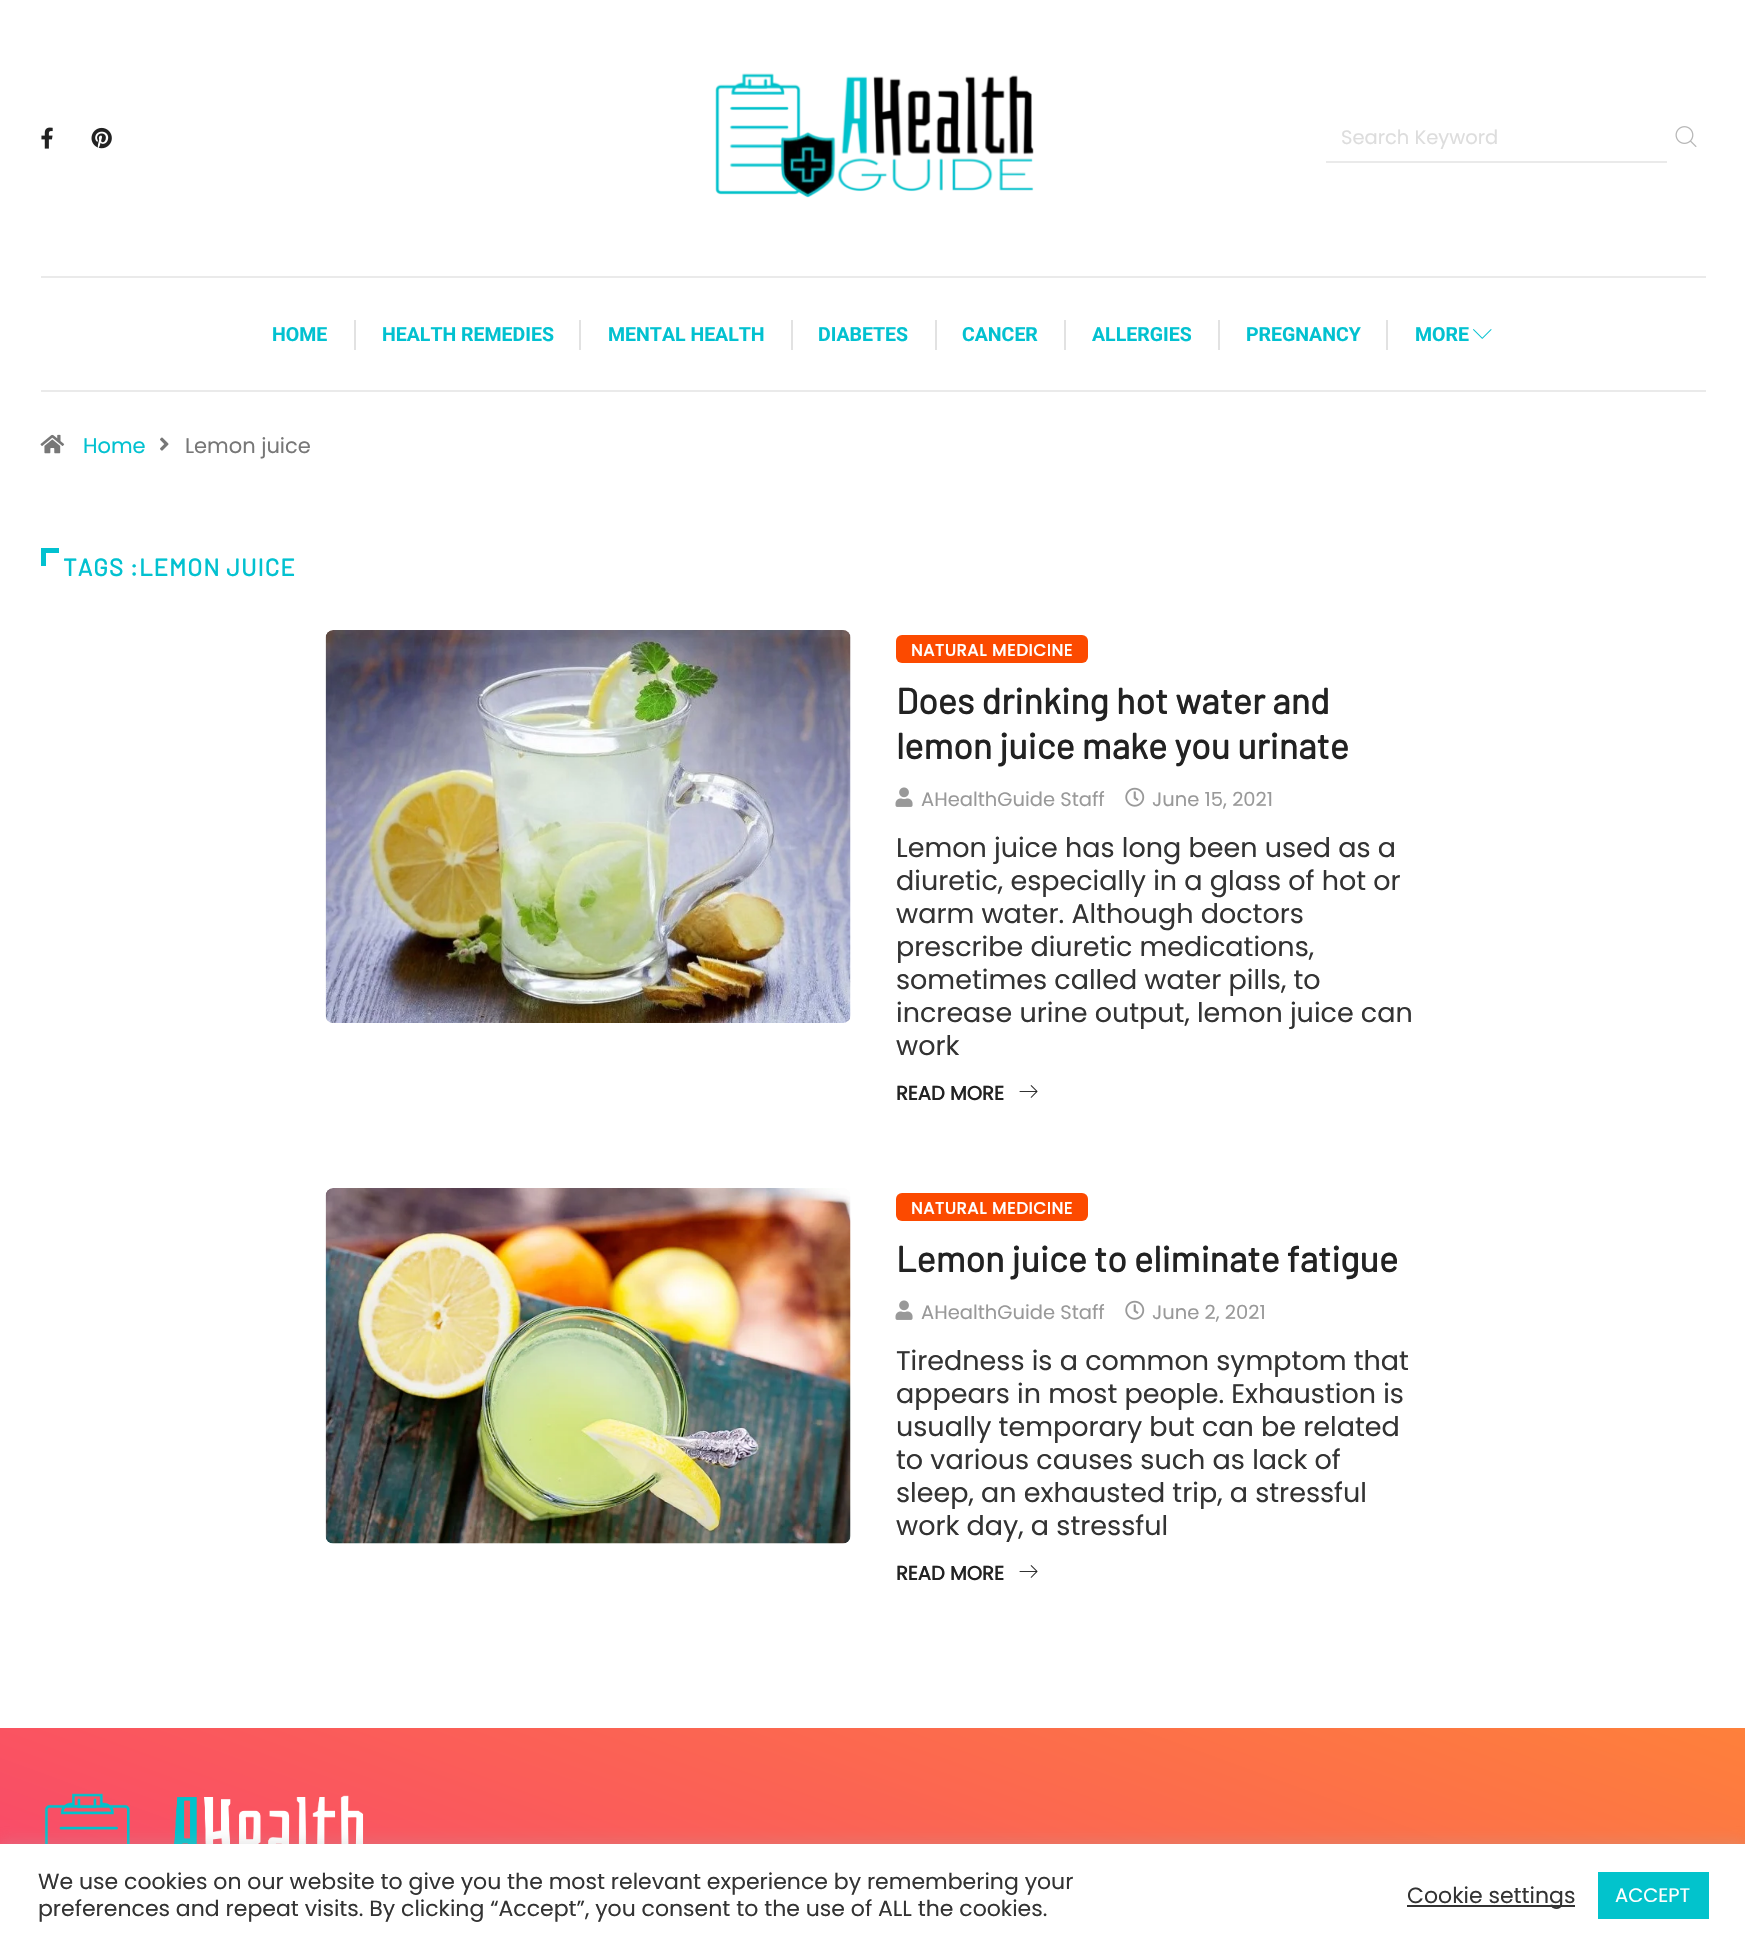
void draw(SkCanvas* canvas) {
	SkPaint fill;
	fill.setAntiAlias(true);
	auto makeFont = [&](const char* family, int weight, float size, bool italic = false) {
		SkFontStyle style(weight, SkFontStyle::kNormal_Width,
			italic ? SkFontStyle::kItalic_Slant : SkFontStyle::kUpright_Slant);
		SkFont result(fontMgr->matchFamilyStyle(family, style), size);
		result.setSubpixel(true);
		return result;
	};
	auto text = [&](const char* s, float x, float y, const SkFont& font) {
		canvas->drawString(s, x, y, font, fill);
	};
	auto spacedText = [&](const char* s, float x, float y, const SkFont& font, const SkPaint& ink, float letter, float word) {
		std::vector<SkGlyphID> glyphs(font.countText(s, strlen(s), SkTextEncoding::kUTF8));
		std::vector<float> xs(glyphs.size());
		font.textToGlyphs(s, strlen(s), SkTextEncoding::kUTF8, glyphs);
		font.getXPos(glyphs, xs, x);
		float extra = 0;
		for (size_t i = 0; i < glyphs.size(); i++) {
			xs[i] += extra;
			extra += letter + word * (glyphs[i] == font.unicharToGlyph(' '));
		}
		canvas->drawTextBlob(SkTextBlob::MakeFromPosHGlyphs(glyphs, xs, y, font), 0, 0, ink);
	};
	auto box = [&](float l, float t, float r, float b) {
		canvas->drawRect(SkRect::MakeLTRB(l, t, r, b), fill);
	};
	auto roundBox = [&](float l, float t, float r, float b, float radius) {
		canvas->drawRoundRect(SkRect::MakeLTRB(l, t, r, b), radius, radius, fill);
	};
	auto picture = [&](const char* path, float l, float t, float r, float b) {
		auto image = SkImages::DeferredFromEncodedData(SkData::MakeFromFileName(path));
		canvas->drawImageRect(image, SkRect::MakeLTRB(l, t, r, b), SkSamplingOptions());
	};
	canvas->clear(0xFFFFFFFF);
	picture("image0.png", 41, 127, 53, 149);
	picture("image1.png", 91, 127, 112, 149);
	picture("image2.png", 715, 73, 1034, 198);
	fill.setColor(0xFFEAEAEA);
	box(1326, 161, 1667, 163);
	picture("image3.png", 1675, 126, 1697, 147);
	box(41, 276, 1706, 278);
	box(41, 390, 1706, 392);
	fill.setColor(0xFFE2E2E2);
	box(354, 320, 356, 350);
	box(579, 320, 581, 350);
	box(791, 320, 793, 350);
	box(935, 320, 937, 350);
	box(1064, 320, 1066, 350);
	box(1218, 320, 1220, 350);
	box(1386, 320, 1388, 350);
	picture("image4.png", 1473, 329, 1492, 339);
	picture("image5.png", 40, 434, 65, 454);
	picture("image6.png", 160, 437, 169, 451);
	fill.setColor(0xFF02C1D0);
	box(41, 548, 46, 566);
	box(41, 548, 59, 553);
	picture("image7.png", 325, 630, 851, 1023);
	fill.setColor(0xFFFC4A00);
	roundBox(896, 635, 1088, 663, 6);
	picture("image8.png", 895, 787, 913, 807);
	picture("image9.png", 1125, 787, 1145, 807);
	picture("image10.png", 1019, 1085, 1038, 1098);
	picture("image11.png", 325, 1188, 851, 1544);
	roundBox(896, 1193, 1088, 1221, 6);
	picture("image8.png", 895, 1300, 913, 1320);
	picture("image9.png", 1125, 1300, 1145, 1320);
	picture("image10.png", 1019, 1565, 1038, 1578);
	{
		const SkColor colors[] = {0xFFF84270, 0xFFFE803B};
		const float stops[] = {0, 1};
		const SkPoint ends[] = {{730, 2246}, {1016, 1462}};
		fill.setShader(SkGradientShader::MakeLinear(ends, colors, stops, 2, SkTileMode::kClamp));
		fill.setAlpha(255);
	}
	box(0, 1728, 1745, 1844);
	picture("image12.png", 44, 1793, 364, 1844);
	fill.setShader(nullptr);
	fill.setColor(0x4DACABAB);
	fill.setMaskFilter(SkMaskFilter::MakeBlur(kNormal_SkBlurStyle, 7.5f));
	canvas->drawRect(SkRect::MakeLTRB(0, 1842, 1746, 1946), fill);
	fill.setMaskFilter(nullptr);
	fill.setColor(0xFFFFFFFF);
	box(0, 1844, 1745, 1946);
	fill.setColor(0xFF333333);
	box(1407, 1905, 1575, 1907);
	fill.setColor(0xFF02C3CC);
	box(1598, 1872, 1709, 1919);
	auto font1 = makeFont("Poppins", 400, 19.5f);
	fill.setColor(0xFFDDDDDD);
	text("Search Keyword", 1341, 144, font1);
	auto font2 = makeFont("Roboto", 700, 19.5f);
	fill.setColor(0xFF02C1D0);
	text("HOME", 272, 341, font2);
	text("HEALTH REMEDIES", 382, 341, font2);
	text("MENTAL HEALTH", 608, 341, font2);
	text("DIABETES", 818, 341, font2);
	text("CANCER", 962, 341, font2);
	text("ALLERGIES", 1092, 341, font2);
	text("PREGNANCY", 1246, 341, font2);
	text("MORE", 1415, 341, font2);
	auto font3 = makeFont("Poppins", 400, 21);
	text("Home", 83, 453, font3);
	fill.setColor(0xFF777777);
	text("Lemon juice", 185, 453, font3);
	auto font4 = makeFont("Barlow", 700, 24);
	fill.setColor(0xFF02C1D0);
	spacedText("TAGS :LEMON JUICE", 63, 576, font4, fill, 1, 0);
	auto font5 = makeFont("Poppins", 700, 16.5f);
	fill.setColor(0xFFFFFFFF);
	spacedText("NATURAL MEDICINE", 911, 656, font5, fill, 0.7f, 0);
	auto font6 = makeFont("Barlow", 700, 36);
	fill.setColor(0xFF222222);
	text("Does drinking hot water and", 896, 714, font6);
	text("lemon juice make you urinate", 896, 759, font6);
	fill.setColor(0xFF999999);
	text("AHealthGuide Staff", 921, 806, font1);
	text("June 15, 2021", 1152, 806, font1);
	auto font7 = makeFont("Poppins", 400, 27);
	fill.setColor(0xFF333333);
	text("Lemon juice has long been used as a", 896, 857, font7);
	text("diuretic, especially in a glass of hot or", 896, 890, font7);
	text("warm water. Although doctors", 896, 923, font7);
	text("prescribe diuretic medications,", 896, 956, font7);
	text("sometimes called water pills, to", 896, 989, font7);
	text("increase urine output, lemon juice can", 896, 1022, font7);
	text("work", 896, 1055, font7);
	auto font8 = makeFont("Poppins", 700, 19.5f);
	fill.setColor(0xFF222222);
	text("READ MORE", 896, 1100, font8);
	fill.setColor(0xFFFFFFFF);
	spacedText("NATURAL MEDICINE", 911, 1214, font5, fill, 0.7f, 0);
	fill.setColor(0xFF222222);
	text("Lemon juice to eliminate fatigue", 896, 1272, font6);
	fill.setColor(0xFF999999);
	text("AHealthGuide Staff", 921, 1319, font1);
	text("June 2, 2021", 1152, 1319, font1);
	fill.setColor(0xFF333333);
	text("Tiredness is a common symptom that", 896, 1370, font7);
	text("appears in most people. Exhaustion is", 896, 1403, font7);
	text("usually temporary but can be related", 896, 1436, font7);
	text("to various causes such as lack of", 896, 1469, font7);
	text("sleep, an exhausted trip, a stressful", 896, 1502, font7);
	text("work day, a stressful", 896, 1535, font7);
	fill.setColor(0xFF222222);
	text("READ MORE", 896, 1580, font8);
	auto font9 = makeFont("Poppins", 400, 22);
	fill.setColor(0xFF333333);
	text("We use cookies on our website to give you the most relevant experience by remembering your", 38, 1889, font9);
	text("preferences and repeat visits. By clicking “Accept”, you consent to the use of ALL the cookies.", 38, 1916, font9);
	text("Cookie settings", 1407, 1903, font9);
	fill.setColor(0xFFFFFFFF);
	text("ACCEPT", 1615, 1902, font1);
}
